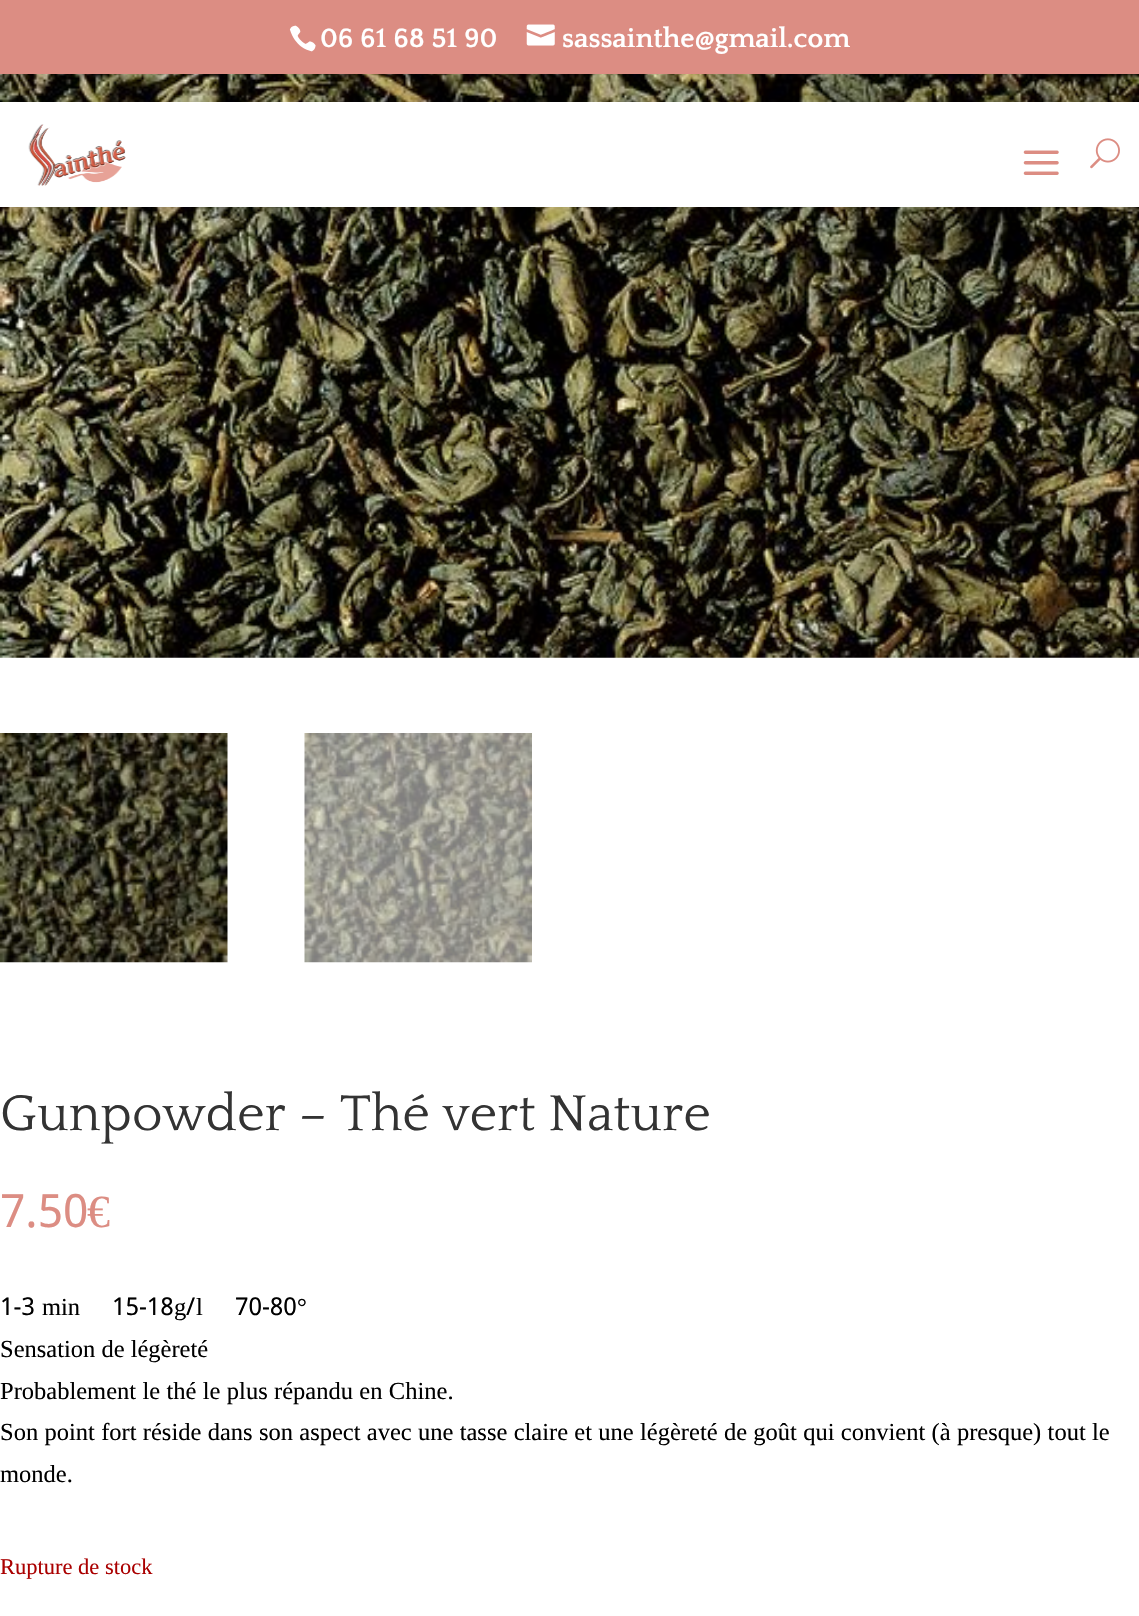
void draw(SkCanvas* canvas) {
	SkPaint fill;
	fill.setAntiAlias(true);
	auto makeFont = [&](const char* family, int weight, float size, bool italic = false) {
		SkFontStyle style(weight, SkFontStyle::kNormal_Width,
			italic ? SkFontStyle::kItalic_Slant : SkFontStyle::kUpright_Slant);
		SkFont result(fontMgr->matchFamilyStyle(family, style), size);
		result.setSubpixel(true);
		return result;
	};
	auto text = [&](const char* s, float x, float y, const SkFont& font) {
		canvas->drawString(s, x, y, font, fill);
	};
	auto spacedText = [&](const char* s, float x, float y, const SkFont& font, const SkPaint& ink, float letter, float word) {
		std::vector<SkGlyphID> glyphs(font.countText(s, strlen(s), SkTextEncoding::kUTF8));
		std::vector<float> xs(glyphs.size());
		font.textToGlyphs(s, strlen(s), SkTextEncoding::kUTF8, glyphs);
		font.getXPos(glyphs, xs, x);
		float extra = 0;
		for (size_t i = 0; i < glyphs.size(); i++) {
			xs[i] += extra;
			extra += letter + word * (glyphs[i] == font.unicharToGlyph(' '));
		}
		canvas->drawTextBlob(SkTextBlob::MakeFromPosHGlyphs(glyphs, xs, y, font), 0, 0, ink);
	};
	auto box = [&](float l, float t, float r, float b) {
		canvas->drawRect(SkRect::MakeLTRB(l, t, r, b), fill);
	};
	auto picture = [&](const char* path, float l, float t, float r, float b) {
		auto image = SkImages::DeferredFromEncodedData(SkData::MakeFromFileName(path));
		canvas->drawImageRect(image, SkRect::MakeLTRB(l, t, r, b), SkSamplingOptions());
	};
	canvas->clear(0xFFFFFFFF);
	picture("image5.png", 0, 74, 1139, 658);
	fill.setColor(0x1A000000);
	fill.setMaskFilter(SkMaskFilter::MakeBlur(kNormal_SkBlurStyle, 22));
	canvas->drawRect(SkRect::MakeLTRB(0, 105, 1139, 210), fill);
	fill.setMaskFilter(nullptr);
	fill.setColor(0xFFDC8D83);
	box(0, 0, 1139, 74);
	picture("image0.png", 289, 25, 316, 52);
	picture("image1.png", 526, 24, 555, 46);
	fill.setColor(0xFFFFFFFF);
	box(0, 102, 1139, 207);
	picture("image2.png", 28, 124, 126, 186);
	picture("image3.png", 1023, 150, 1059, 175);
	picture("image4.png", 1090, 138, 1120, 169);
	picture("image6.png", 0, 733, 228, 963);
	picture("image7.png", 304, 733, 532, 963);
	auto font1 = makeFont("Quattrocento", 700, 28);
	text("06 61 68 51 90", 320, 47, font1);
	text("sassainthe@gmail.com", 562, 47, font1);
	auto font2 = makeFont("Quattrocento", 400, 52.5f);
	fill.setColor(0xFF333333);
	text("Gunpowder – Thé vert Nature", 0, 1130, font2);
	auto font3 = makeFont("Khmer", 400, 46);
	fill.setColor(0xFFDC8D83);
	text("7.50", 0, 1227, font3);
	auto font4 = makeFont("Liberation Serif", 400, 46);
	text("€", 87, 1227, font4);
	auto font5 = makeFont("Khmer", 400, 24.5f);
	fill.setColor(0xFF000000);
	text("1-3", 0, 1315, font5);
	auto font6 = makeFont("Liberation Serif", 400, 24.5f);
	text("min", 42, 1315, font6);
	text("15-18", 112, 1315, font5);
	text("g", 174, 1315, font6);
	text("/", 186, 1315, font5);
	text("l", 196, 1315, font6);
	text("70-80", 235, 1315, font5);
	text("°", 297, 1315, font6);
	text("Sensation de légèreté", 0, 1357, font6);
	spacedText("Probablement le thé le plus répandu en Chine.", 0, 1399, font6, fill, 0, 0.25f);
	spacedText("Son point fort réside dans son aspect avec une tasse claire et une légèreté de goût qui convient (à presque) tout le", 0, 1440, font6, fill, 0, 0.2f);
	text("monde.", 0, 1482, font6);
	auto font7 = makeFont("Liberation Serif", 400, 22.5f);
	fill.setColor(0xFFAA0000);
	text("Rupture de stock", 0, 1574, font7);
}
